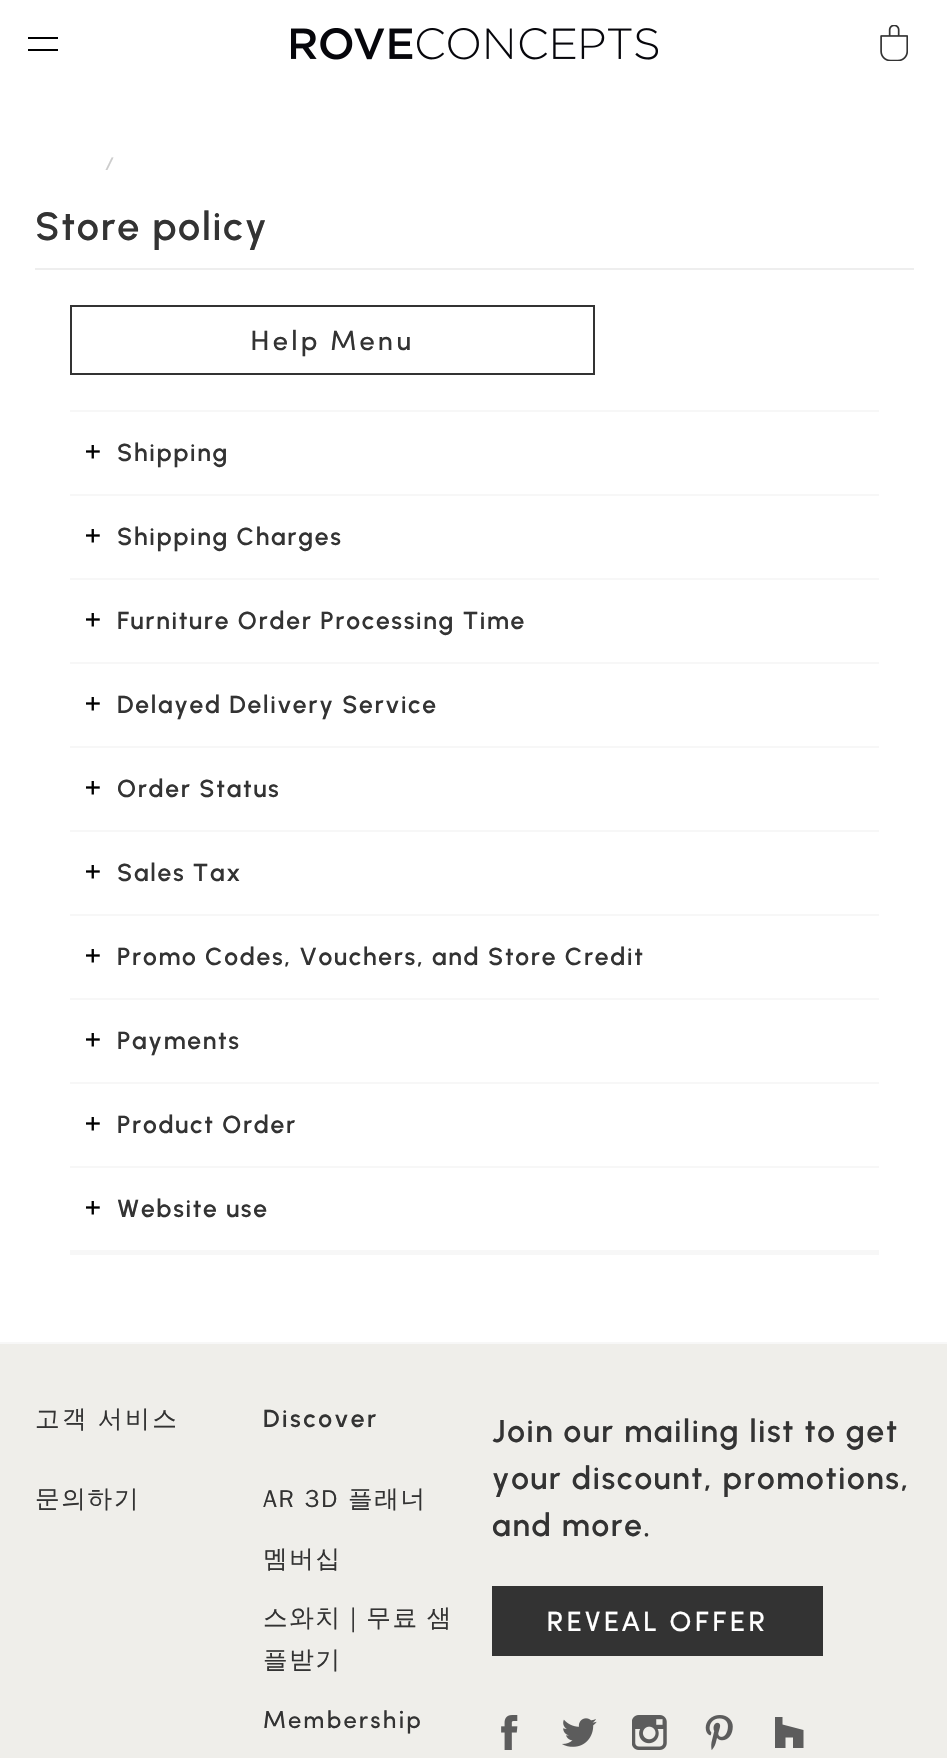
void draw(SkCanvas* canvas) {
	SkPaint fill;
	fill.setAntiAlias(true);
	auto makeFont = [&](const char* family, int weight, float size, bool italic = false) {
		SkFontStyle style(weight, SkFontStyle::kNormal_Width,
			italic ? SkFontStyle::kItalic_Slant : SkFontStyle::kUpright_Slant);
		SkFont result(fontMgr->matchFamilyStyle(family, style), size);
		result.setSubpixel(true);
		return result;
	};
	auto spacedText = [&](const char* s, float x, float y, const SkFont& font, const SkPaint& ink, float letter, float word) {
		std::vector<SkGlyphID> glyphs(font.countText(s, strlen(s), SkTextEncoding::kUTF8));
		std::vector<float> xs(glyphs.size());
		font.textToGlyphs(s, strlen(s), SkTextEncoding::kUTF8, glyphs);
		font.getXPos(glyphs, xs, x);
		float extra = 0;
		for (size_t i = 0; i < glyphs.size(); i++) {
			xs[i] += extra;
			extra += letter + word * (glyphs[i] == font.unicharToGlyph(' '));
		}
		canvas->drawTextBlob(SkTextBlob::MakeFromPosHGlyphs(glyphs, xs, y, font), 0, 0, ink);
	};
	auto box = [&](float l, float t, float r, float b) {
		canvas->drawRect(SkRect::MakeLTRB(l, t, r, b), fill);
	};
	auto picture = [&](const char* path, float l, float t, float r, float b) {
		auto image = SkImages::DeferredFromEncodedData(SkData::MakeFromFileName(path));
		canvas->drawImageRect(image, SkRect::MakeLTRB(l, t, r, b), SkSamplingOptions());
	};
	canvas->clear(0xFFFFFFFF);
	fill.setColor(0xFF000000);
	box(28, 37, 58, 39);
	box(28, 49, 58, 51);
	picture("image0.png", 880, 25, 908, 61);
	picture("image1.png", 291, 28, 658, 60);
	fill.setColor(0xFFEEEEEE);
	box(35, 268, 914, 270);
	fill.setStyle(SkPaint::kStroke_Style);
	fill.setStrokeWidth(2);
	fill.setColor(0xFF333333);
	canvas->drawRect(SkRect::MakeLTRB(71, 306, 594, 374), fill);
	fill.setStyle(SkPaint::kFill_Style);
	fill.setColor(0xFFF7F7F7);
	box(70, 410, 879, 412);
	box(70, 494, 879, 496);
	picture("image2.png", 86, 445, 100, 459);
	box(70, 578, 879, 580);
	picture("image2.png", 86, 529, 100, 543);
	box(70, 1253, 879, 1255);
	box(70, 662, 879, 664);
	picture("image2.png", 86, 613, 100, 627);
	box(70, 746, 879, 748);
	picture("image2.png", 86, 697, 100, 711);
	box(70, 830, 879, 832);
	picture("image2.png", 86, 781, 100, 795);
	box(70, 914, 879, 916);
	picture("image2.png", 86, 865, 100, 879);
	box(70, 998, 879, 1000);
	picture("image2.png", 86, 949, 100, 963);
	box(70, 1082, 879, 1084);
	picture("image2.png", 86, 1033, 100, 1047);
	box(70, 1166, 879, 1168);
	picture("image2.png", 86, 1117, 100, 1131);
	box(70, 1250, 879, 1253);
	picture("image2.png", 86, 1201, 100, 1215);
	fill.setColor(0xFFEFEEEA);
	box(0, 1344, 947, 1758);
	fill.setColor(0xFFF7F7F7);
	box(0, 1342, 947, 1344);
	fill.setColor(0xFF333333);
	box(492, 1586, 823, 1656);
	picture("image3.png", 501, 1715, 518, 1750);
	picture("image4.png", 562, 1718, 597, 1747);
	picture("image5.png", 632, 1715, 667, 1750);
	picture("image6.png", 705, 1715, 733, 1750);
	fill.setColor(0xFF5C5C5C);
	canvas->drawPath(SkPathBuilder().moveTo(793, 1737.5f).lineTo(785.5f, 1737.5f).lineTo(785.5f, 1748).lineTo(775, 1748).lineTo(775, 1717).lineTo(782.5f, 1717).lineTo(782.5f, 1724.5f).lineTo(803.5f, 1730).lineTo(803.5f, 1748).lineTo(793, 1748).close().detach(), fill);
	auto font1 = makeFont("Sofia", 400, 18);
	fill.setColor(0xFFCCCCCC);
	spacedText("/", 105, 170, font1, fill, 1.7f, 0);
	auto font2 = makeFont("Urbanist", 600, 39.5f);
	fill.setColor(0xFF333333);
	spacedText("Store policy", 35, 240, font2, fill, 1.7f, 0);
	auto font3 = makeFont("Sofia", 400, 28);
	spacedText("Help Menu", 250, 350, font3, fill, 2.75f, 0);
	auto font4 = makeFont("Urbanist", 600, 24.6f);
	spacedText("Shipping", 117, 461, font4, fill, 1.7f, 0);
	spacedText("Shipping Charges", 117, 545, font4, fill, 1.7f, 0);
	spacedText("Furniture Order Processing Time", 117, 629, font4, fill, 1.7f, 0);
	spacedText("Delayed Delivery Service", 117, 713, font4, fill, 1.7f, 0);
	spacedText("Order Status", 117, 797, font4, fill, 1.7f, 0);
	spacedText("Sales Tax", 117, 881, font4, fill, 1.7f, 0);
	spacedText("Promo Codes, Vouchers, and Store Credit", 117, 965, font4, fill, 1.7f, 0);
	spacedText("Payments", 117, 1049, font4, fill, 1.7f, 0);
	spacedText("Product Order", 117, 1133, font4, fill, 1.7f, 0);
	spacedText("Website use", 117, 1217, font4, fill, 1.7f, 0);
	auto font5 = makeFont("WenQuanYi Zen Hei", 500, 24.6f);
	spacedText("고객 서비스", 35, 1427, font5, fill, 2.5f, -1);
	spacedText("문의하기", 35, 1507, font5, fill, 1.7f, 0);
	spacedText("Discover", 263, 1427, font4, fill, 2.5f, 0);
	spacedText("AR 3D 플래너", 263, 1507, font5, fill, 1.7f, 0);
	spacedText("멤버십", 263, 1567, font5, fill, 1.7f, 0);
	spacedText("스와치 | 무료 샘", 263, 1626, font5, fill, 1.7f, -1);
	spacedText("플받기", 263, 1668, font5, fill, 1.7f, 0);
	auto font6 = makeFont("Sofia", 400, 24.6f);
	spacedText("Membership", 263, 1728, font6, fill, 1.7f, 0);
	auto font7 = makeFont("Urbanist", 600, 31.5f);
	spacedText("Join our mailing list to get", 492, 1442, font7, fill, 1.7f, 0);
	spacedText("your discount, promotions,", 492, 1489, font7, fill, 1.7f, 0);
	spacedText("and more.", 492, 1536, font7, fill, 1.7f, 0);
	fill.setColor(0xFFFFFFFF);
	spacedText("REVEAL OFFER", 546, 1631, font3, fill, 2.75f, 0);
}
